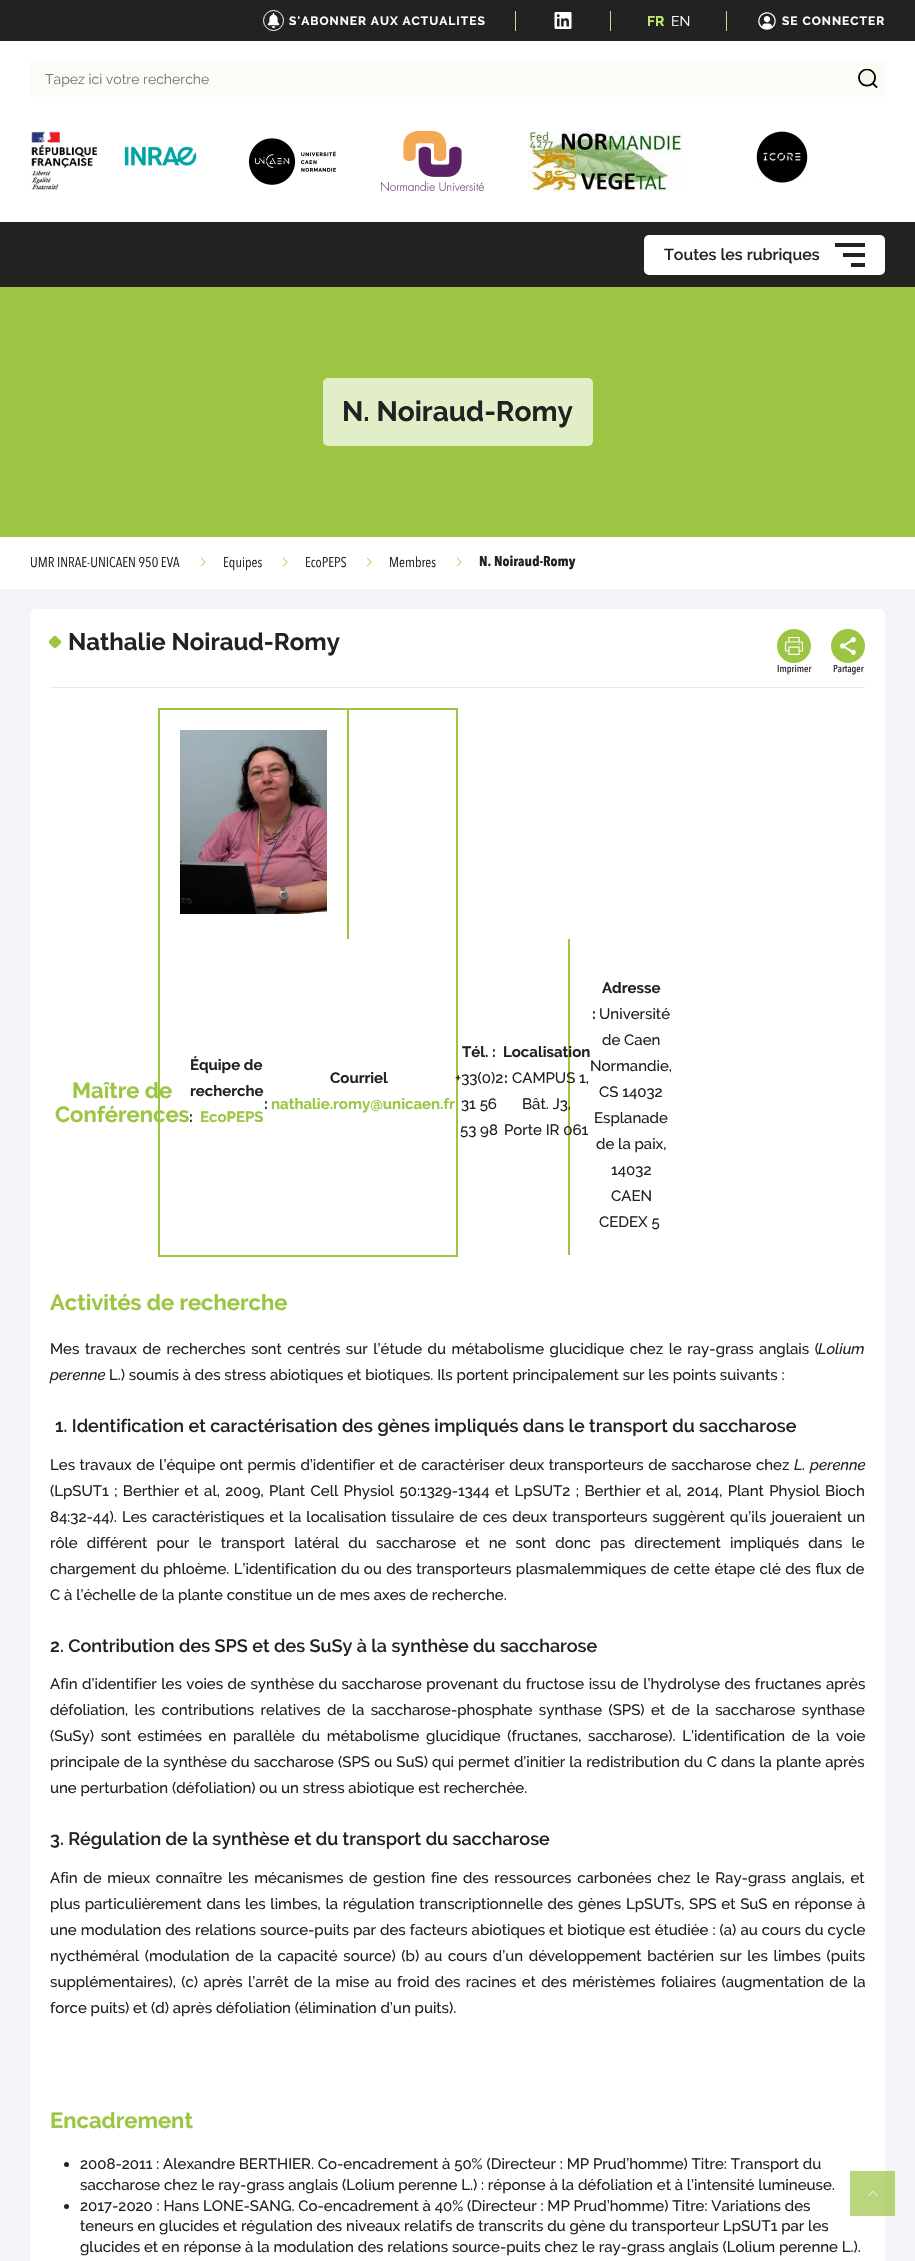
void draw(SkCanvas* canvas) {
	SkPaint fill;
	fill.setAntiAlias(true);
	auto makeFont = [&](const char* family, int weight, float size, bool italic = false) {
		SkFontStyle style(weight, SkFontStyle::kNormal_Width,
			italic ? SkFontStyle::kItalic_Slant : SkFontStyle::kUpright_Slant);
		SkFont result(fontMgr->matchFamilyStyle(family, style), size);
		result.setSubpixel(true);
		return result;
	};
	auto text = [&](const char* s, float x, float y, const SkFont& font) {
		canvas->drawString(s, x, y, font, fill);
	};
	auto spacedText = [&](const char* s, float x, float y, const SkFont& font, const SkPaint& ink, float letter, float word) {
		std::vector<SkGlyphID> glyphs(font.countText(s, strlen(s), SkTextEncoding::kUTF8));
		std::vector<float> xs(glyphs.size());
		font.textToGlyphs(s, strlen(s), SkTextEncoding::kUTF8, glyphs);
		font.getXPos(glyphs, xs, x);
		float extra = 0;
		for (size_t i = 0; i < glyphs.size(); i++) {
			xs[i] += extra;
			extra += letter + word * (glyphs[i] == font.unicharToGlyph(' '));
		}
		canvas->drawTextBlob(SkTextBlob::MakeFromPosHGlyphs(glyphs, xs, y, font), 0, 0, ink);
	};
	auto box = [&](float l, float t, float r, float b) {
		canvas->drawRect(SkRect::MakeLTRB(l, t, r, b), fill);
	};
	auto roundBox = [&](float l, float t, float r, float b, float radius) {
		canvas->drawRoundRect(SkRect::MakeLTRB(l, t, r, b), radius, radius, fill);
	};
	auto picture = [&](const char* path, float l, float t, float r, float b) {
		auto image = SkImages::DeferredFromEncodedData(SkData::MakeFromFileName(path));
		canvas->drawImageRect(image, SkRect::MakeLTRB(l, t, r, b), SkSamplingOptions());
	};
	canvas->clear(0xFFFFFFFF);
	fill.setColor(0xFF222222);
	box(0, 0, 915, 41);
	fill.setStyle(SkPaint::kStroke_Style);
	fill.setStrokeWidth(1);
	fill.setColor(0xFFFFFFFF);
	canvas->drawCircle(273.5f, 20.5f, 10, fill);
	picture("image0.png", 267, 13, 280, 28);
	fill.setStyle(SkPaint::kFill_Style);
	fill.setColor(0xFFC1E66F);
	box(515, 11, 516, 31);
	picture("image1.png", 554, 12, 572, 29);
	box(610, 11, 611, 31);
	box(726, 11, 727, 31);
	picture("image2.png", 758, 12, 776, 30);
	fill.setColor(0xFFFAFCF6);
	roundBox(30, 61, 885, 97, 2);
	picture("image3.png", 858, 68, 878, 88);
	picture("image4.png", 31, 131, 197, 190);
	picture("image5.png", 248, 138, 336, 185);
	picture("image6.png", 381, 131, 484, 191);
	picture("image7.png", 528, 131, 683, 191);
	picture("image8.png", 756, 131, 808, 183);
	fill.setColor(0xFF222222);
	box(0, 222, 915, 287);
	fill.setColor(0xFFFFFFFF);
	roundBox(644, 235, 885, 275, 5);
	fill.setColor(0xFF222222);
	box(835, 243, 865, 247);
	box(843, 253, 865, 257);
	box(851, 263, 865, 267);
	fill.setColor(0xFF9DC544);
	box(0, 287, 915, 537);
	fill.setColor(0xFFE2EEC7);
	roundBox(323, 378, 593, 446, 5);
	picture("image9.png", 201, 557, 206, 567);
	picture("image9.png", 283, 557, 288, 567);
	picture("image9.png", 367, 557, 372, 567);
	picture("image9.png", 457, 557, 462, 567);
	fill.setColor(0xFFF3F3F8);
	box(0, 589, 915, 2261);
	fill.setColor(0xFFB7D37A);
	box(885, 2171, 895, 2216);
	fill.setColor(0xFFFFFFFF);
	roundBox(30, 609, 885, 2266, 5);
	fill.setColor(0xFFBAD67C);
	box(850, 2171, 885, 2216);
	fill.setColor(0xFFEAEAEA);
	box(50, 687, 865, 688);
	fill.setColor(0xFF9DC544);
	canvas->drawPath(SkPathBuilder().moveTo(56.5f, 636.5f).lineTo(61, 641).cubicTo(62, 643, 59.5f, 644.5f, 58.5f, 645.5f).cubicTo(57.5f, 646.5f, 55.5f, 649.5f, 53.5f, 647.5f).lineTo(49, 643).cubicTo(48, 641, 50.5f, 639.5f, 51.5f, 638.5f).cubicTo(52.5f, 637.5f, 54.5f, 634.5f, 56.5f, 636.5f).close().detach(), fill);
	canvas->drawCircle(794, 646, 17, fill);
	picture("image10.png", 785, 637, 803, 655);
	canvas->drawCircle(848, 646, 17, fill);
	picture("image11.png", 840, 637, 856, 655);
	fill.setStyle(SkPaint::kStroke_Style);
	fill.setStrokeWidth(2);
	canvas->drawRect(SkRect::MakeLTRB(159, 709, 457, 1256), fill);
	fill.setStyle(SkPaint::kFill_Style);
	box(347, 710, 349, 939);
	picture("image12.png", 180, 730, 327, 914);
	box(568, 939, 570, 1255);
	fill.setColor(0xFF222222);
	canvas->drawCircle(66.5f, 2164.5f, 2.5f, fill);
	canvas->drawCircle(66.5f, 2206.5f, 2.5f, fill);
	picture("image13.png", 868, 2191, 878, 2197);
	auto font1 = makeFont("Raleway", 700, 12);
	fill.setColor(0xFFFFFFFF);
	spacedText("S'ABONNER AUX ACTUALITES", 289, 25, font1, fill, 1, 0);
	auto font2 = makeFont("Raleway", 700, 14);
	fill.setColor(0xFFC1E66F);
	text("FR", 647, 26, font2);
	auto font3 = makeFont("Raleway", 400, 14);
	fill.setColor(0xFFFFFFFF);
	text("EN", 671, 26, font3);
	spacedText("SE CONNECTER", 782, 25, font1, fill, 1, 0);
	fill.setColor(0xFF787977);
	text("Tapez ici votre recherche", 45, 84, font3);
	auto font4 = makeFont("Raleway", 600, 16);
	fill.setColor(0xFF222222);
	text("Toutes les rubriques", 664, 260, font4);
	auto font5 = makeFont("Raleway", 700, 28);
	text("N. Noiraud-Romy", 342, 421, font5);
	auto font6 = makeFont("Avenir Next", 400, 14);
	text("UMR INRAE-UNICAEN 950 EVA", 30, 567, font6);
	text("Equipes", 223, 567, font6);
	text("EcoPEPS", 305, 567, font6);
	text("Membres", 389, 567, font6);
	auto font7 = makeFont("Avenir Next", 700, 14);
	text("N. Noiraud-Romy", 479, 566, font7);
	auto font8 = makeFont("Raleway", 700, 24);
	text("Nathalie Noiraud-Romy", 68, 650, font8);
	auto font9 = makeFont("Avenir Next", 500, 10);
	text("Imprimer", 777, 672, font9);
	text("Partager", 833, 672, font9);
	auto font10 = makeFont("Raleway", 700, 22);
	fill.setColor(0xFF9DC544);
	text("Maître de", 72, 1098, font10);
	text("Conférences", 55, 1122, font10);
	auto font11 = makeFont("Raleway", 700, 15);
	fill.setColor(0xFF222222);
	text("Équipe de", 190, 1070, font11);
	text("recherche", 190, 1096, font11);
	text(":", 189, 1122, font11);
	fill.setColor(0xFF9DC544);
	text("EcoPEPS", 200, 1122, font11);
	fill.setColor(0xFF222222);
	text("Courriel", 330, 1083, font11);
	text(":", 264, 1109, font11);
	fill.setColor(0xFF9DC544);
	text("nathalie.romy@unicaen.fr", 271, 1109, font11);
	fill.setColor(0xFF222222);
	text("Tél. :", 462, 1057, font11);
	auto font12 = makeFont("Raleway", 500, 15);
	text("+33(0)2", 455, 1083, font12);
	text("31 56", 461, 1109, font12);
	text("53 98", 460, 1135, font12);
	text("Localisation", 503, 1057, font11);
	text(":", 504, 1083, font11);
	text("CAMPUS 1,", 512, 1083, font12);
	text("Bât. J3,", 522, 1109, font12);
	text("Porte IR 061", 504, 1135, font12);
	text("Adresse", 602, 993, font11);
	text(":", 592, 1019, font11);
	text("Université", 599, 1019, font12);
	text("de Caen", 602, 1045, font12);
	text("Normandie,", 590, 1071, font12);
	text("CS 14032", 599, 1097, font12);
	text("Esplanade", 594, 1123, font12);
	text("de la paix,", 596, 1149, font12);
	text("14032", 611, 1175, font12);
	text("CAEN", 611, 1201, font12);
	text("CEDEX 5", 599, 1227, font12);
	fill.setColor(0xFF9DC544);
	text("Activités de recherche", 50, 1310, font10);
	fill.setColor(0xFF222222);
	spacedText("Mes travaux de recherches sont centrés sur l’étude du métabolisme glucidique chez le ray-grass anglais (", 50, 1354, font12, fill, 0, 1.75f);
	auto font13 = makeFont("Raleway", 500, 15, true);
	text("Lolium", 818, 1354, font13);
	text("perenne", 50, 1380, font13);
	text("L.) soumis à des stress abiotiques et biotiques. Ils portent principalement sur les points suivants :", 109, 1380, font12);
	auto font14 = makeFont("Raleway", 600, 18);
	text("1. Identification et caractérisation des gènes impliqués dans le transport du saccharose", 55, 1432, font14);
	spacedText("Les travaux de l’équipe ont permis d’identifier et de caractériser deux transporteurs de saccharose chez", 50, 1470, font12, fill, 0, 0.75f);
	spacedText("L. perenne", 794, 1470, font13, fill, 0, 1);
	spacedText("(LpSUT1 ; Berthier et al, 2009, Plant Cell Physiol 50:1329-1344 et LpSUT2 ; Berthier et al, 2014, Plant Physiol Bioch", 50, 1496, font12, fill, 0, 1.6f);
	spacedText("84:32-44). Les caractéristiques et la localisation tissulaire de ces deux transporteurs suggèrent qu’ils joueraient un", 50, 1522, font12, fill, 0, 1.25f);
	spacedText("rôle différent pour le transport latéral du saccharose et ne sont donc pas directement impliqués dans le", 50, 1548, font12, fill, 0, 5.4f);
	spacedText("chargement du phloème. L’identification du ou des transporteurs plasmalemmiques de cette étape clé des flux de", 50, 1574, font12, fill, 0, 0.6f);
	text("C à l’échelle de la plante constitue un de mes axes de recherche.", 50, 1600, font12);
	text("2. Contribution des SPS et des SuSy à la synthèse du saccharose", 50, 1652, font14);
	spacedText("Afin d’identifier les voies de synthèse du saccharose provenant du fructose issu de l’hydrolyse des fructanes après", 50, 1689, font12, fill, 0, 0.7f);
	spacedText("défoliation, les contributions relatives de la saccharose-phosphate synthase (SPS) et de la saccharose synthase", 50, 1715, font12, fill, 0, 2.6f);
	spacedText("(SuSy) sont estimées en parallèle du métabolisme glucidique (fructanes, saccharose). L’identification de la voie", 50, 1741, font12, fill, 0, 2.9f);
	spacedText("principale de la synthèse du saccharose (SPS ou SuS) qui permet d’initier la redistribution du C dans la plante après", 50, 1767, font12, fill, 0, 0.4f);
	text("une perturbation (défoliation) ou un stress abiotique est recherchée.", 50, 1793, font12);
	text("3. Régulation de la synthèse et du transport du saccharose", 50, 1845, font14);
	spacedText("Afin de mieux connaître les mécanismes de gestion fine des ressources carbonées chez le Ray-grass anglais, et", 50, 1883, font12, fill, 0, 1.9f);
	spacedText("plus particulièrement dans les limbes, la régulation transcriptionnelle des gènes LpSUTs, SPS et SuS en réponse à", 50, 1909, font12, fill, 0, 0.9f);
	spacedText("une modulation des relations source-puits par des facteurs abiotiques et biotique est étudiée : (a) au cours du cycle", 50, 1935, font12, fill, 0, 0.25f);
	spacedText("nycthéméral (modulation de la capacité source) (b) au cours d’un développement bactérien sur les limbes (puits", 50, 1961, font12, fill, 0, 1.9f);
	spacedText("supplémentaires), (c) après l’arrêt de la mise au froid des racines et des méristèmes foliaires (augmentation de la", 50, 1987, font12, fill, 0, 1.5f);
	text("force puits) et (d) après défoliation (élimination d’un puits).", 50, 2013, font12);
	fill.setColor(0xFF9DC544);
	text("Encadrement", 50, 2128, font10);
	fill.setColor(0xFF222222);
	text("2008-2011 : Alexandre BERTHIER. Co-encadrement à 50% (Directeur : MP Prud’homme) Titre: Transport du", 80, 2169, font12);
	text("saccharose chez le ray-grass anglais (Lolium perenne L.) : réponse à la défoliation et à l’intensité lumineuse.", 80, 2190, font12);
	text("2017-2020 : Hans LONE-SANG. Co-encadrement à 40% (Directeur : MP Prud’homme) Titre: Variations des", 80, 2211, font12);
	text("teneurs en glucides et régulation des niveaux relatifs de transcrits du gène du transporteur LpSUT1 par les", 80, 2231, font12);
	text("glucides et en réponse à la modulation des relations source-puits chez le ray-grass anglais (Lolium perenne L.).", 80, 2252, font12);
}
